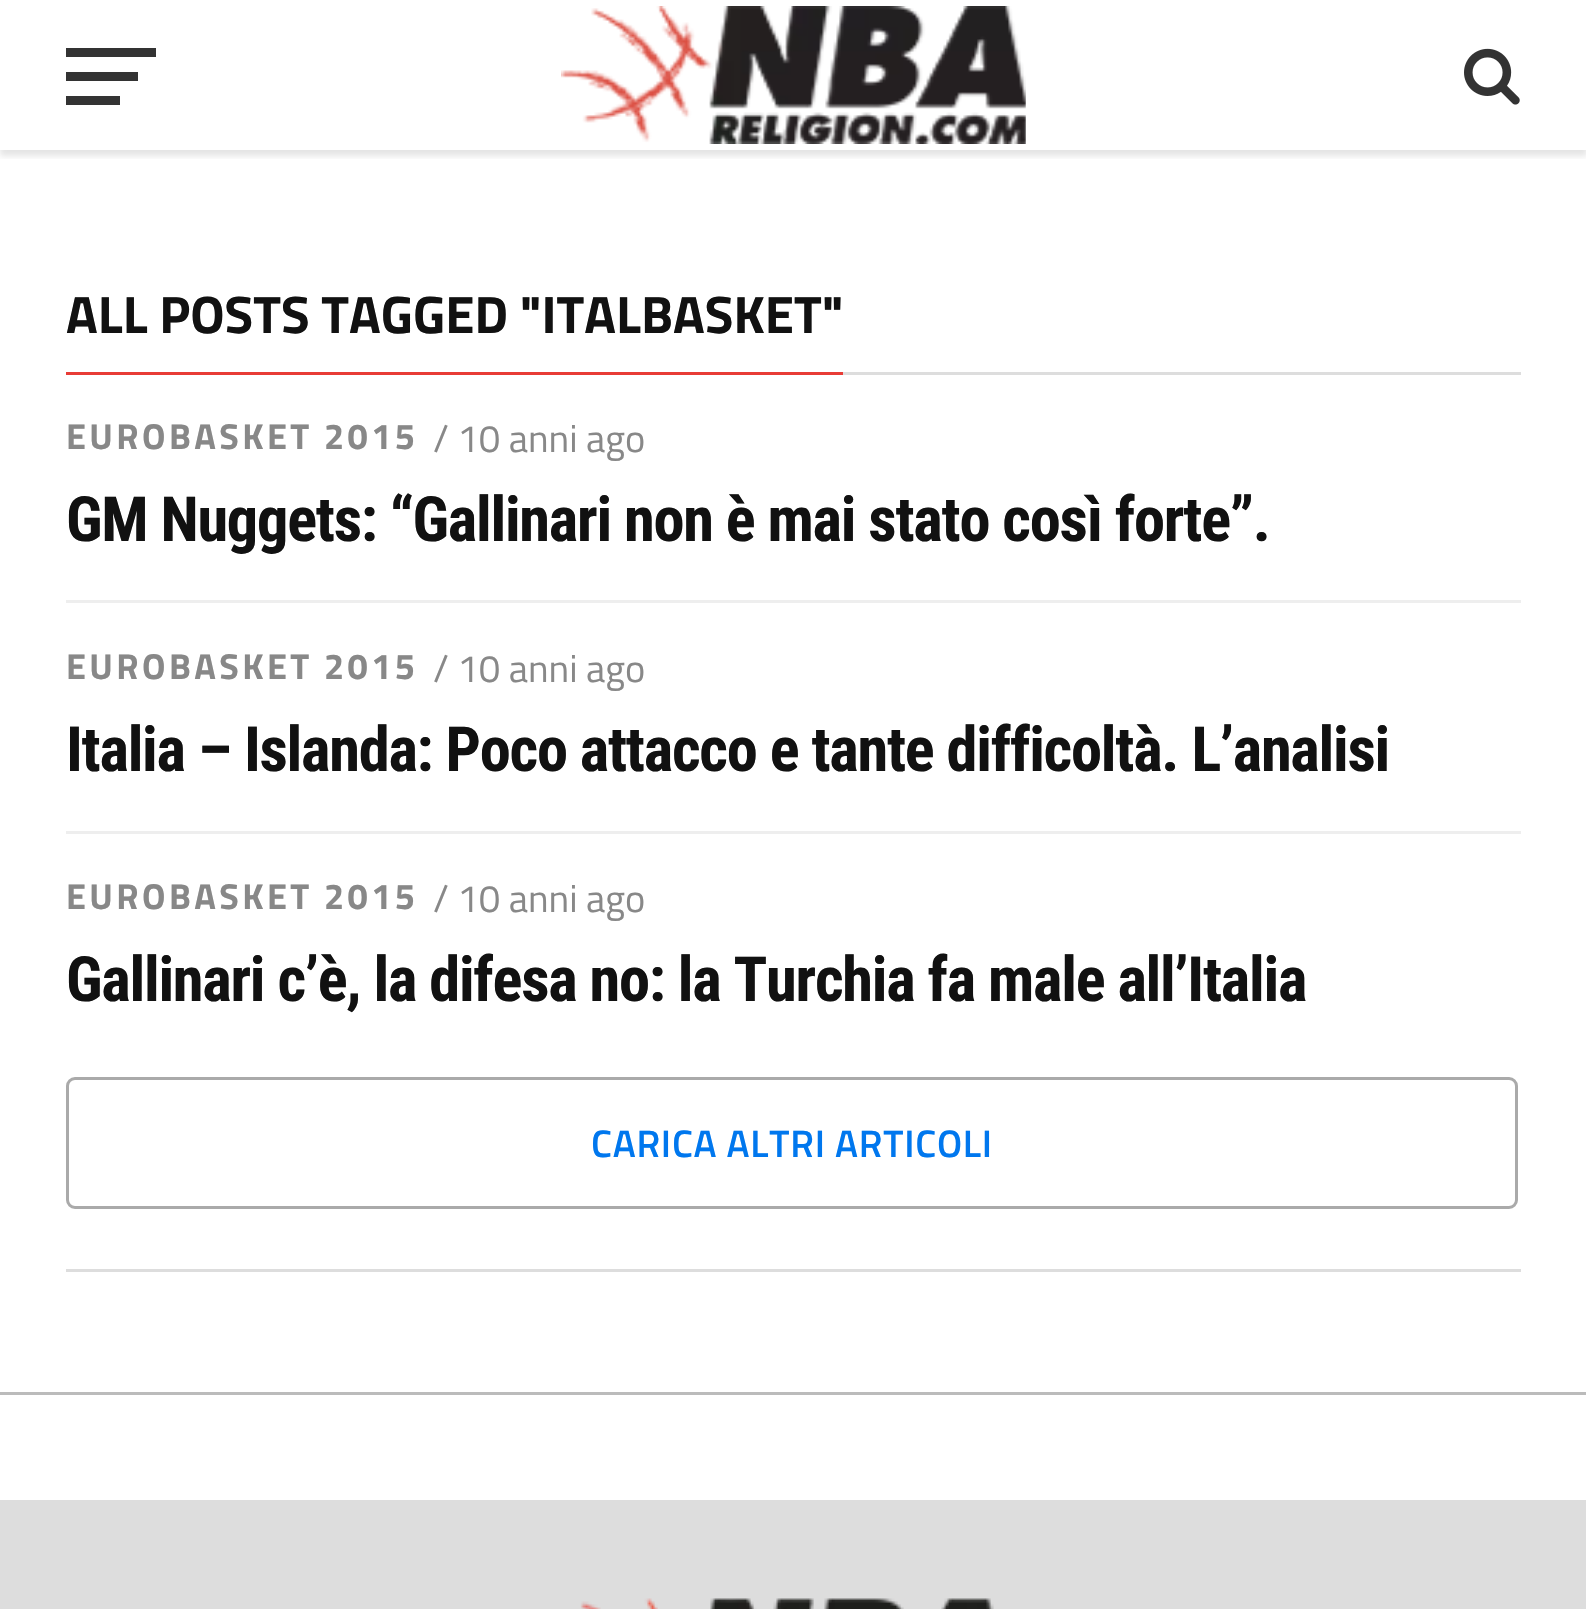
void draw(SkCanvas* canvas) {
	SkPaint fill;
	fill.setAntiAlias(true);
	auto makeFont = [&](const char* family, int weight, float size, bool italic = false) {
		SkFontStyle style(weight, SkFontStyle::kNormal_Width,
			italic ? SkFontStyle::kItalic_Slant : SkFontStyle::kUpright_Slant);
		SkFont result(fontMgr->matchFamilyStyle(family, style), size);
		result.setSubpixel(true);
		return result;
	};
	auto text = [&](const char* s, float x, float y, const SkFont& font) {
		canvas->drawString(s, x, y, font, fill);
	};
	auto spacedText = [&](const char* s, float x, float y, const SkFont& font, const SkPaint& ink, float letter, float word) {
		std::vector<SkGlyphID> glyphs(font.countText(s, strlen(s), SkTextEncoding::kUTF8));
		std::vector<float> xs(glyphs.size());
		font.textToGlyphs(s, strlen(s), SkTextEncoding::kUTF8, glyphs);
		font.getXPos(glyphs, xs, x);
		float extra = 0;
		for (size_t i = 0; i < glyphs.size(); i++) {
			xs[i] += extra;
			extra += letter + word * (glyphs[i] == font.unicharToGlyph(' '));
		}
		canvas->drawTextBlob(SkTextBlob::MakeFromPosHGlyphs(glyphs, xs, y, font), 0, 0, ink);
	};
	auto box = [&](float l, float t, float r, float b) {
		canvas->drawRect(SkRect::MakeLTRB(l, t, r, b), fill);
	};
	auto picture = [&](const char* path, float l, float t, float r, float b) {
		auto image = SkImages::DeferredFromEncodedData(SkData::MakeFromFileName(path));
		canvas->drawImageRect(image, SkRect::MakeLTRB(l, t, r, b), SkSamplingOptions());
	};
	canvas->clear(0xFFFFFFFF);
	canvas->save();
	canvas->clipRect(SkRect::MakeLTRB(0, 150, 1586, 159));
	fill.setColor(0x1A000000);
	fill.setMaskFilter(SkMaskFilter::MakeBlur(kNormal_SkBlurStyle, 3));
	canvas->drawRect(SkRect::MakeLTRB(0, 6, 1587, 156), fill);
	fill.setMaskFilter(nullptr);
	canvas->restore();
	fill.setColor(0xFF333333);
	box(66, 48, 156, 57);
	box(66, 72, 138, 81);
	box(66, 96, 120, 105);
	picture("image0.png", 561, 6, 1026, 144);
	picture("image1.png", 1464, 48, 1520, 105);
	fill.setColor(0xFFBBBBBB);
	box(0, 1392, 1586, 1395);
	fill.setColor(0xFFDDDDDD);
	box(843, 372, 1521, 375);
	fill.setColor(0xFFE83C36);
	box(66, 372, 843, 375);
	fill.setColor(0xFFEEEEEE);
	box(66, 600, 1521, 603);
	box(66, 831, 1521, 834);
	fill.setStyle(SkPaint::kStroke_Style);
	fill.setStrokeWidth(3);
	fill.setColor(0xFFAAAAAA);
	canvas->drawRoundRect(SkRect::MakeLTRB(67.5f, 1078.5f, 1516.5f, 1207.5f), 7.5f, 7.5f, fill);
	fill.setStyle(SkPaint::kFill_Style);
	fill.setColor(0xFFDDDDDD);
	box(66, 1269, 1521, 1272);
	box(0, 1500, 1586, 1609);
	picture("image2.png", 580, 1598, 994, 1609);
	auto font1 = makeFont("Titillium Web", 700, 52.75f);
	fill.setColor(0xFF111111);
	text("ALL POSTS TAGGED \"ITALBASKET\"", 66, 333, font1);
	auto font2 = makeFont("Titillium Web", 700, 36);
	fill.setColor(0xFF888888);
	spacedText("EUROBASKET 2015", 66, 449, font2, fill, 3.4f, 0);
	auto font3 = makeFont("Titillium Web", 400, 38.4f);
	text("/ 10 anni ago", 433, 452, font3);
	auto font4 = makeFont("Roboto Condensed", 700, 62.4f);
	fill.setColor(0xFF111111);
	spacedText("GM Nuggets: “Gallinari non è mai stato così forte”.", 66, 541, font4, fill, -1.25f, 0);
	fill.setColor(0xFF888888);
	spacedText("EUROBASKET 2015", 66, 679, font2, fill, 3.4f, 0);
	text("/ 10 anni ago", 433, 682, font3);
	fill.setColor(0xFF111111);
	spacedText("Italia – Islanda: Poco attacco e tante difficoltà. L’analisi", 66, 771, font4, fill, -1.25f, 0);
	fill.setColor(0xFF888888);
	spacedText("EUROBASKET 2015", 66, 909, font2, fill, 3.4f, 0);
	text("/ 10 anni ago", 433, 912, font3);
	fill.setColor(0xFF111111);
	spacedText("Gallinari c’è, la difesa no: la Turchia fa male all’Italia", 66, 1001, font4, fill, -1.25f, 0);
	auto font5 = makeFont("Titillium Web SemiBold", 600, 38.4f);
	fill.setColor(0xFF0077EE);
	spacedText("CARICA ALTRI ARTICOLI", 591, 1157, font5, fill, 0.75f, 0);
}
